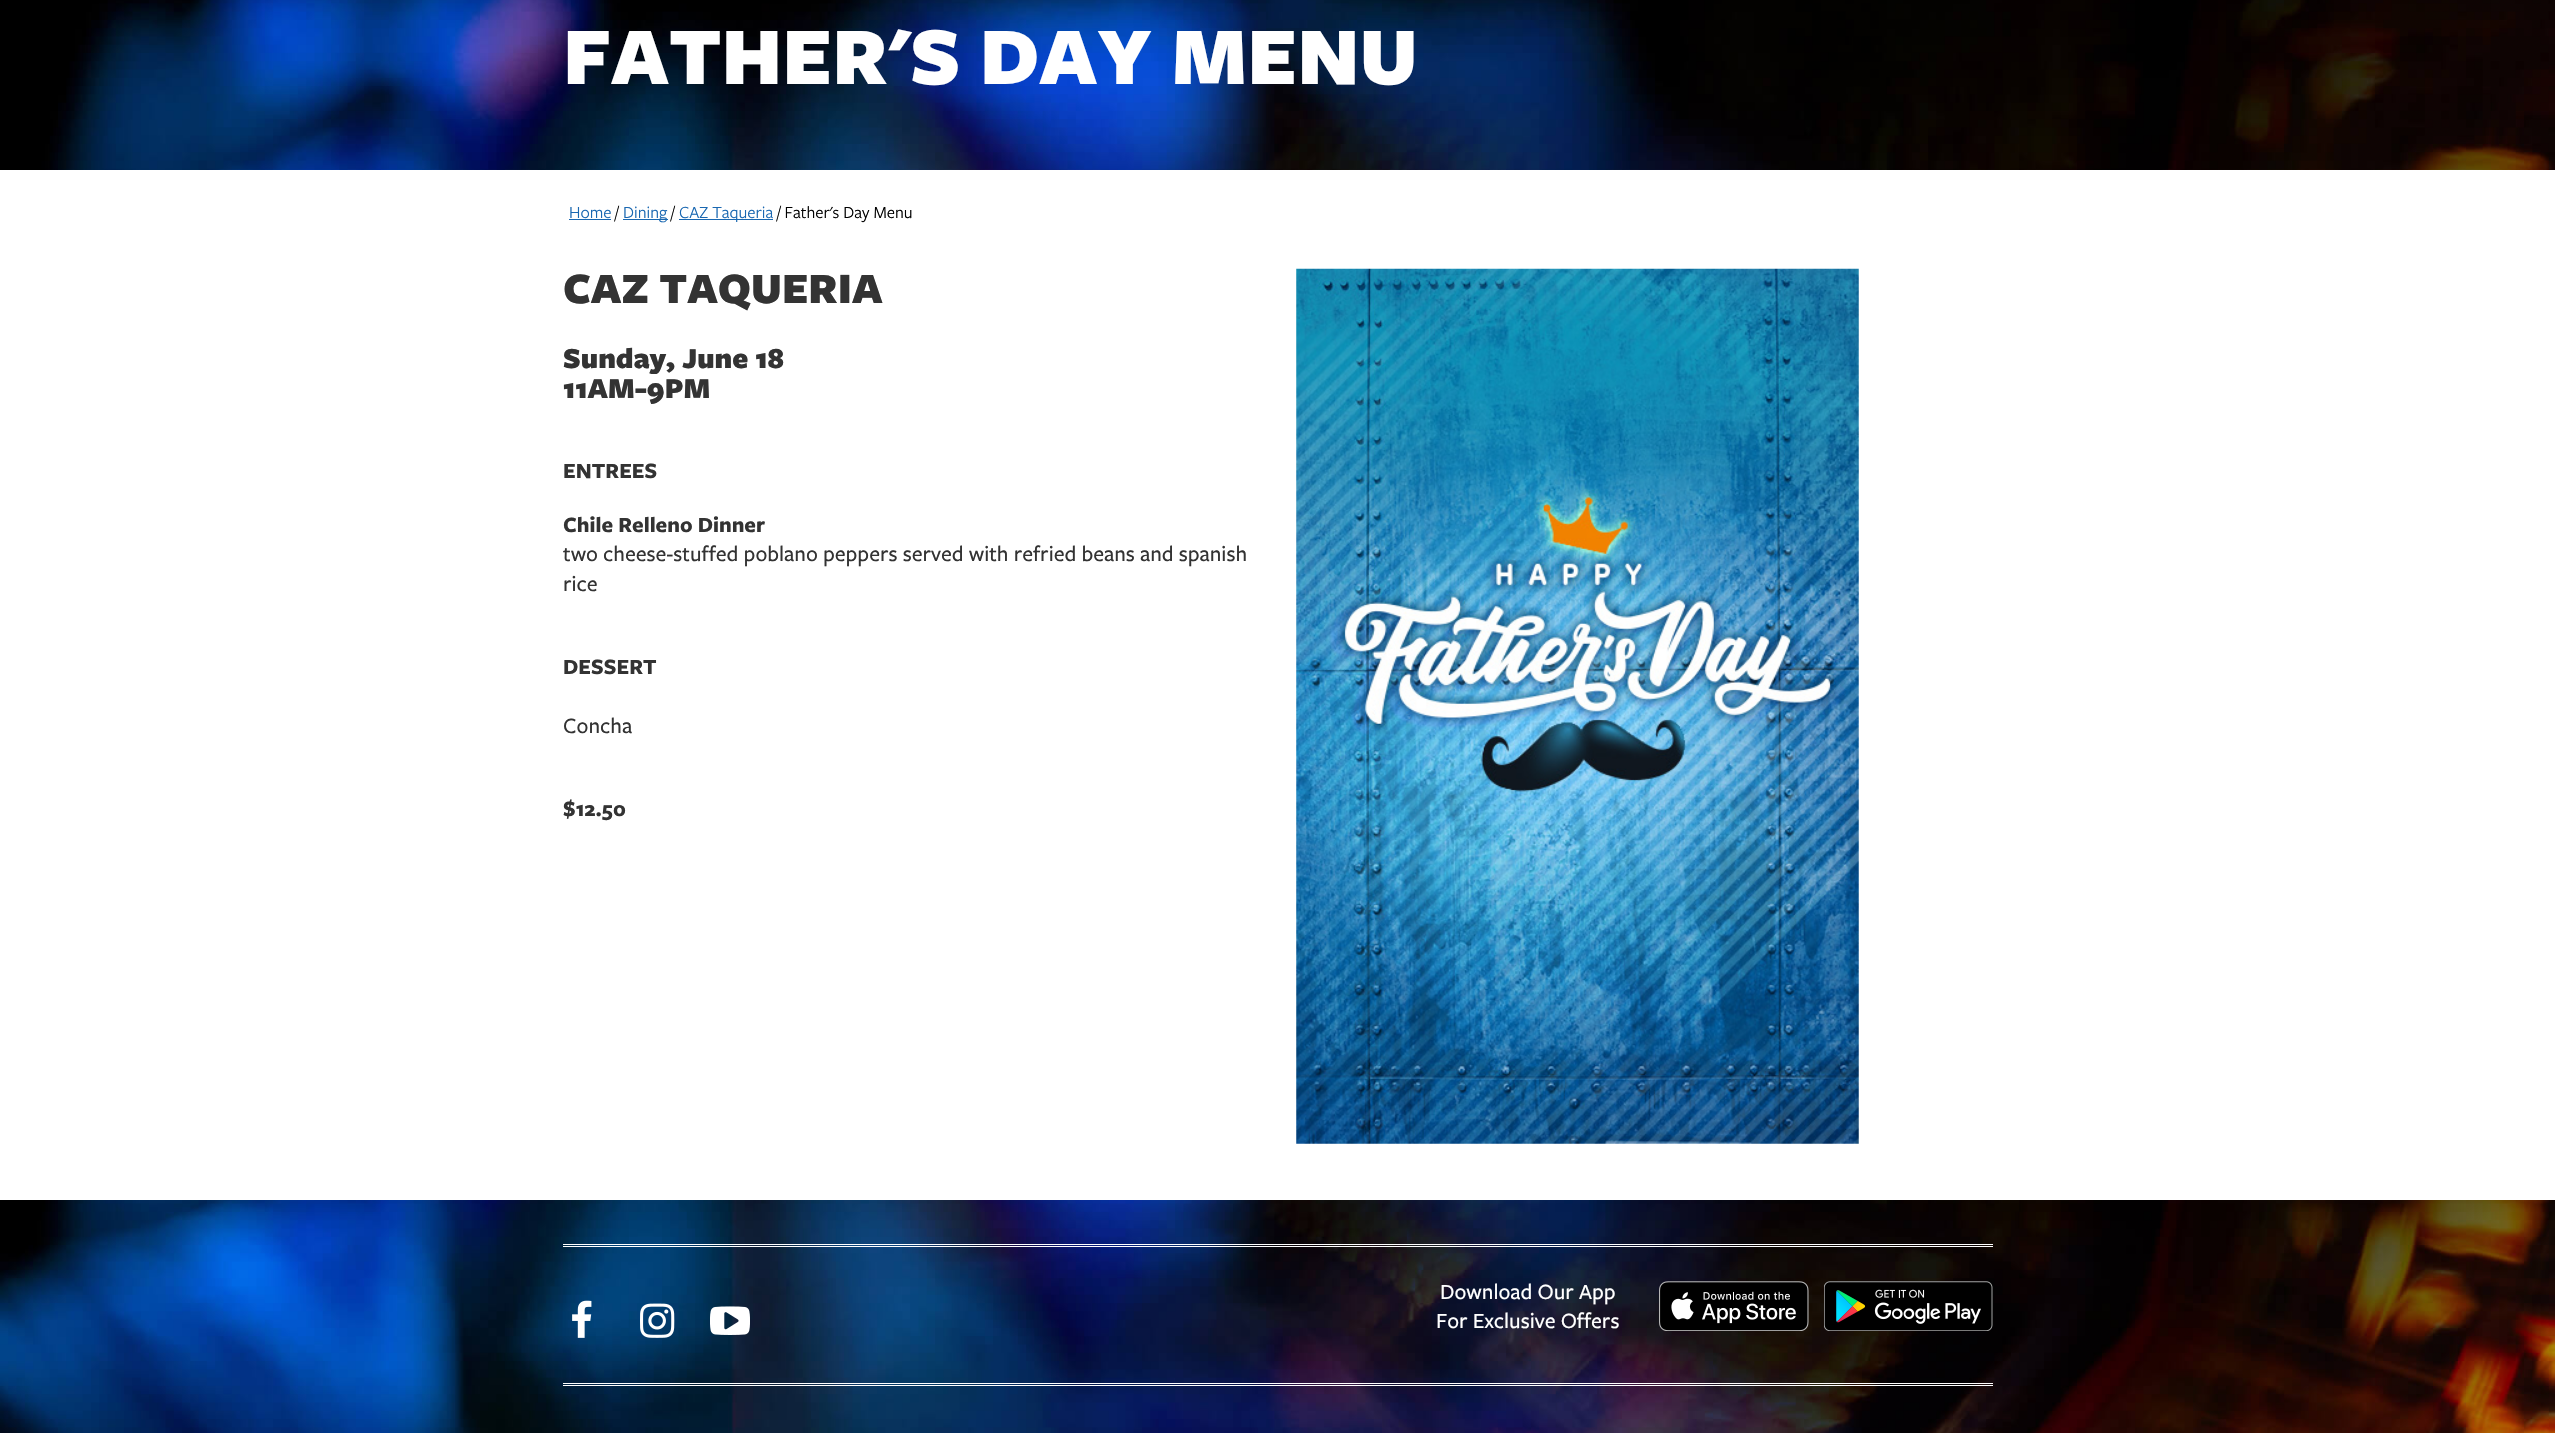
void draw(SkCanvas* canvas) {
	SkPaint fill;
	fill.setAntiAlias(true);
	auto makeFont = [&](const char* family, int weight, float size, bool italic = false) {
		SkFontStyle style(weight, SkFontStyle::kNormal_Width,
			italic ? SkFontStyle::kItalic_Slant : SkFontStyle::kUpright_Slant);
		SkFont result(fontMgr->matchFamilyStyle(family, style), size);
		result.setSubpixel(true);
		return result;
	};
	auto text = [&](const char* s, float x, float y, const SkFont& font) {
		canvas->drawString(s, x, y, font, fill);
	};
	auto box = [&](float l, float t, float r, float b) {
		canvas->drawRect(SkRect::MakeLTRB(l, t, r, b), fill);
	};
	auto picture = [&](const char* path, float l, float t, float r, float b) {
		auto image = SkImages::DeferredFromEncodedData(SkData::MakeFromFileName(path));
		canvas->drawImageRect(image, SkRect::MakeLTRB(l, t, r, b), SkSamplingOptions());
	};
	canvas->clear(0xFFFFFFFF);
	picture("image0.png", 0, 0, 2555, 170);
	fill.setColor(0xFF1967B1);
	box(569, 219, 611, 220);
	box(623, 219, 668, 220);
	box(679, 219, 773, 220);
	picture("image1.png", 1296, 268, 1859, 1144);
	picture("image2.png", 0, 1200, 2555, 1433);
	fill.setColor(0xFFFFFFFF);
	box(563, 1244, 1993, 1245);
	box(563, 1246, 1993, 1247);
	box(563, 1383, 1993, 1384);
	box(563, 1385, 1993, 1386);
	picture("image3.png", 572, 1300, 592, 1338);
	picture("image4.png", 640, 1303, 675, 1338);
	picture("image5.png", 710, 1306, 750, 1335);
	picture("image6.png", 1659, 1281, 1809, 1331);
	picture("image7.png", 1824, 1281, 1993, 1331);
	auto font1 = makeFont("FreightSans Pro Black", 900, 85);
	text("FATHER'S DAY MENU", 563, 84, font1);
	auto font2 = makeFont("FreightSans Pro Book", 400, 17.5f);
	fill.setColor(0xFF1967B1);
	text("Home", 569, 218, font2);
	fill.setColor(0xFF000000);
	text("/", 615, 218, font2);
	fill.setColor(0xFF1967B1);
	text("Dining", 623, 218, font2);
	fill.setColor(0xFF000000);
	text("/", 671, 218, font2);
	fill.setColor(0xFF1967B1);
	text("CAZ Taqueria", 679, 218, font2);
	fill.setColor(0xFF000000);
	text("/ Father's Day Menu", 777, 218, font2);
	auto font3 = makeFont("FreightSans Pro Black", 900, 45);
	fill.setColor(0xFF333333);
	text("CAZ TAQUERIA", 563, 303, font3);
	auto font4 = makeFont("FreightSans Pro Black", 900, 30);
	text("Sunday, June 18", 563, 368, font4);
	text("11AM-9PM", 563, 398, font4);
	auto font5 = makeFont("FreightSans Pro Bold", 700, 22.5f);
	text("ENTREES", 563, 478, font5);
	text("Chile Relleno Dinner", 563, 532, font5);
	auto font6 = makeFont("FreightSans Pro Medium", 500, 22.5f);
	text("two cheese-stuffed poblano peppers served with refried beans and spanish", 563, 561, font6);
	text("rice", 563, 591, font6);
	text("DESSERT", 563, 674, font5);
	text("Concha", 563, 733, font6);
	text("$12.50", 563, 816, font5);
	fill.setColor(0xFFFFFFFF);
	text("Download Our App", 1440, 1299, font6);
	text("For Exclusive Offers", 1436, 1328, font6);
}
